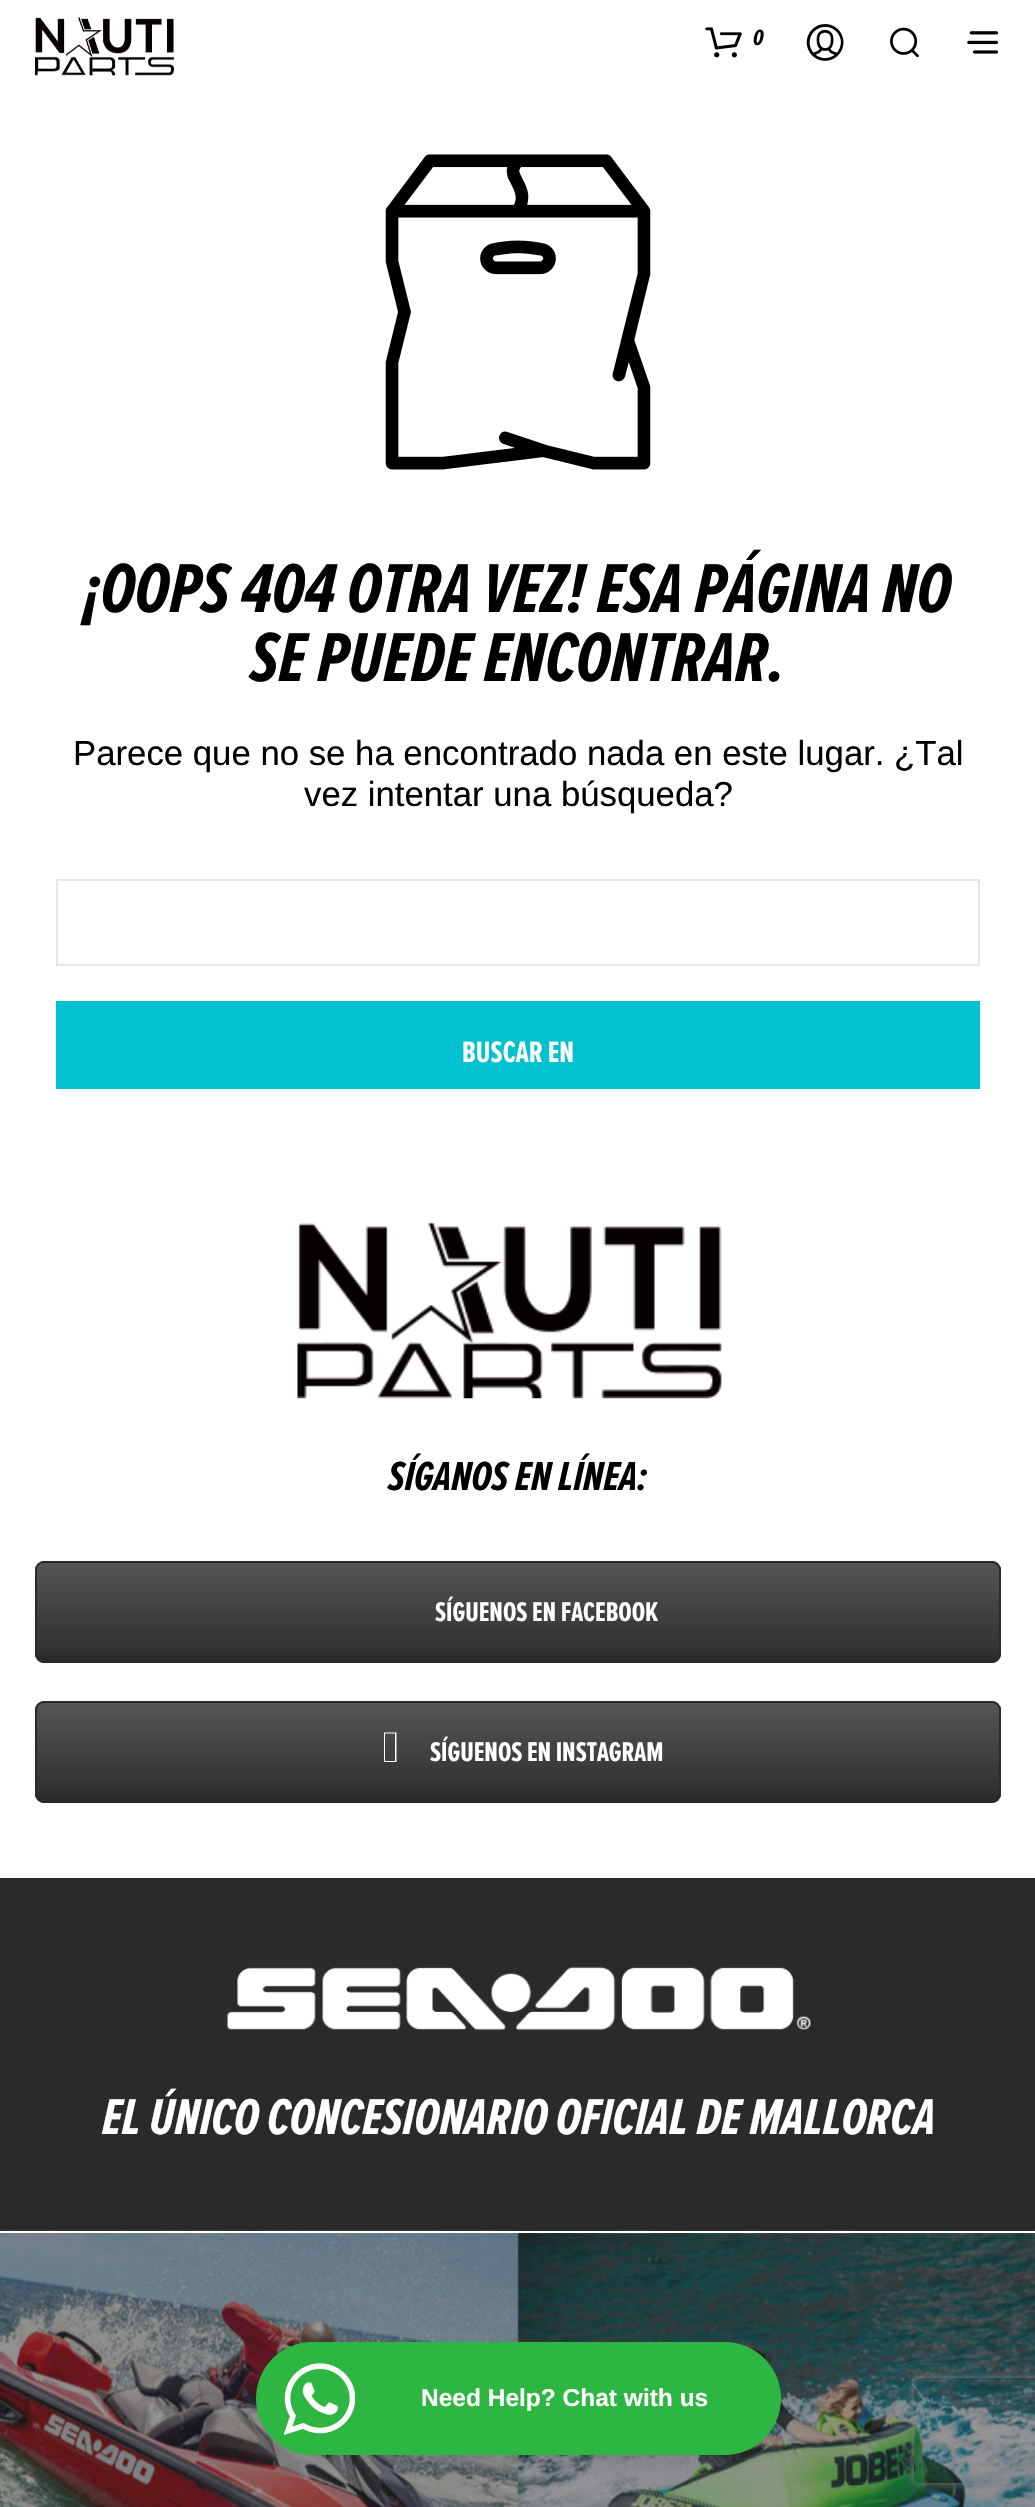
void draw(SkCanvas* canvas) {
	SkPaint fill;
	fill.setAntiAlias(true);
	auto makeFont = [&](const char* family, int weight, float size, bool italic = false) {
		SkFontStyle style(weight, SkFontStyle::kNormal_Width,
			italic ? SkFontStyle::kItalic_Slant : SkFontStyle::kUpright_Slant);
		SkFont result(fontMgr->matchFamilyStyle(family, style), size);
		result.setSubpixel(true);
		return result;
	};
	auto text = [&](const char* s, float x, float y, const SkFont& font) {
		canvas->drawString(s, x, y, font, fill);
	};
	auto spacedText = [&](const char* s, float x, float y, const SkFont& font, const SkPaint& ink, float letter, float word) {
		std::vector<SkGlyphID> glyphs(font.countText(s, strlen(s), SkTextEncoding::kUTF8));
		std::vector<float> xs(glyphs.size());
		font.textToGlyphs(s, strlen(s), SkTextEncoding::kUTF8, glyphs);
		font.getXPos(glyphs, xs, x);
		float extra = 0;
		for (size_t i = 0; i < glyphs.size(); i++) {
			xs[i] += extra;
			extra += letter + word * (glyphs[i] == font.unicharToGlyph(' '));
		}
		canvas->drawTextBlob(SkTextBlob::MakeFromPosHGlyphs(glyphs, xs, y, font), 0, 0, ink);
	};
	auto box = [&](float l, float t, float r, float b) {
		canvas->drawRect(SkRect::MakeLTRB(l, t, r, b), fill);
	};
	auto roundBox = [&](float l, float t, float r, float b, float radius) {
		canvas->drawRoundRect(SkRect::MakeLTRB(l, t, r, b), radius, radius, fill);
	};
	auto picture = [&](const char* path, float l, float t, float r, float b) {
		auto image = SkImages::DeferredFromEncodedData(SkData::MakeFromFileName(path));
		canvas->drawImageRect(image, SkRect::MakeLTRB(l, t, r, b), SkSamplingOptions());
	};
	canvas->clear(0xFFFFFFFF);
	picture("image0.png", 35, 17, 174, 76);
	picture("image1.png", 705, 27, 742, 58);
	picture("image2.png", 806, 24, 844, 61);
	picture("image3.png", 890, 27, 919, 58);
	picture("image4.png", 967, 31, 998, 54);
	picture("image5.png", 385, 154, 651, 470);
	fill.setStyle(SkPaint::kStroke_Style);
	fill.setStrokeWidth(2);
	fill.setColor(0xFFE6E6E6);
	canvas->drawRect(SkRect::MakeLTRB(57, 880, 979, 965), fill);
	fill.setStyle(SkPaint::kFill_Style);
	fill.setColor(0xFF00C1CF);
	box(56, 1001, 980, 1089);
	picture("image6.png", 297, 1222, 722, 1399);
	fill.setColor(0xFF2A2A2A);
	roundBox(35, 1561, 1001, 1663, 9);
	canvas->save();
	canvas->clipPath(SkPathBuilder().moveTo(44, 1561).lineTo(992, 1561).cubicTo(997, 1561, 1001, 1565, 1001, 1570).lineTo(1001, 1654).cubicTo(1001, 1659, 997, 1663, 992, 1663).lineTo(44, 1663).cubicTo(39, 1663, 35, 1659, 35, 1654).lineTo(35, 1570).cubicTo(35, 1565, 39, 1561, 44, 1561).close().detach(), true);
	{
		const SkColor colors[] = {0x33FFFFFF, 0x03FFFFFF};
		const float stops[] = {0, 1};
		const SkPoint ends[] = {{518, 1563}, {518, 1661}};
		fill.setShader(SkGradientShader::MakeLinear(ends, colors, stops, 2, SkTileMode::kClamp));
		fill.setAlpha(255);
	}
	box(35, 1563, 1001, 1655);
	canvas->restore();
	fill.setStyle(SkPaint::kStroke_Style);
	fill.setShader(nullptr);
	fill.setColor(0xFF2A2A2A);
	canvas->drawRoundRect(SkRect::MakeLTRB(36, 1562, 1000, 1662), 8, 8, fill);
	fill.setStyle(SkPaint::kFill_Style);
	roundBox(35, 1701, 1001, 1803, 9);
	canvas->save();
	canvas->clipPath(SkPathBuilder().moveTo(44, 1701).lineTo(992, 1701).cubicTo(997, 1701, 1001, 1705, 1001, 1710).lineTo(1001, 1794).cubicTo(1001, 1799, 997, 1803, 992, 1803).lineTo(44, 1803).cubicTo(39, 1803, 35, 1799, 35, 1794).lineTo(35, 1710).cubicTo(35, 1705, 39, 1701, 44, 1701).close().detach(), true);
	{
		const SkColor colors[] = {0x33FFFFFF, 0x03FFFFFF};
		const float stops[] = {0, 1};
		const SkPoint ends[] = {{518, 1703}, {518, 1801}};
		fill.setShader(SkGradientShader::MakeLinear(ends, colors, stops, 2, SkTileMode::kClamp));
		fill.setAlpha(255);
	}
	box(35, 1703, 1001, 1795);
	canvas->restore();
	fill.setStyle(SkPaint::kStroke_Style);
	fill.setShader(nullptr);
	fill.setColor(0xFF2A2A2A);
	canvas->drawRoundRect(SkRect::MakeLTRB(36, 1702, 1000, 1802), 8, 8, fill);
	fill.setStyle(SkPaint::kFill_Style);
	fill.setColor(0xFFFFFFFF);
	canvas->drawPath(SkPathBuilder().moveTo(384, 1762).lineTo(396.5f, 1762).lineTo(396.5f, 1732.5f).lineTo(384, 1732.5f).close().moveTo(395, 1733.5f).lineTo(395, 1761).lineTo(385, 1761).lineTo(385, 1733.5f).close().detach(), fill);
	fill.setColor(0xFF2A2A2A);
	box(0, 1878, 1035, 2231);
	picture("image7.png", 226, 1966, 811, 2031);
	picture("image8.png", 0, 2230, 1035, 2507);
	fill.setColor(0xFFFFFFFF);
	box(0, 2231, 1035, 2233);
	fill.setColor(0x17202025);
	fill.setMaskFilter(SkMaskFilter::MakeBlur(kNormal_SkBlurStyle, 7));
	canvas->drawRoundRect(SkRect::MakeLTRB(254, 2347, 782, 2464), 58.5f, 58.5f, fill);
	fill.setMaskFilter(nullptr);
	fill.setColor(0xFF2DB742);
	roundBox(256, 2342, 781, 2455, 56.5f);
	picture("image9.png", 284, 2363, 355, 2435);
	canvas->save();
	canvas->clipPath(SkPathBuilder(SkPathFillType::kEvenOdd).moveTo(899, 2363).lineTo(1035, 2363).lineTo(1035, 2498).lineTo(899, 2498).close().moveTo(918, 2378).lineTo(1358, 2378).cubicTo(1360, 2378, 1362, 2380, 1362, 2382).lineTo(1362, 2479).cubicTo(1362, 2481, 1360, 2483, 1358, 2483).lineTo(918, 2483).cubicTo(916, 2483, 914, 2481, 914, 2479).lineTo(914, 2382).cubicTo(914, 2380, 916, 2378, 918, 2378).close().detach(), true);
	fill.setColor(0xFF808080);
	fill.setMaskFilter(SkMaskFilter::MakeBlur(kNormal_SkBlurStyle, 4.5f));
	canvas->drawRoundRect(SkRect::MakeLTRB(914, 2378, 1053, 2483), 4, 4, fill);
	fill.setMaskFilter(nullptr);
	canvas->restore();
	auto font1 = makeFont("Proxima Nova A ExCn", 700, 23, true);
	fill.setColor(0xFF000000);
	spacedText("0", 753, 45, font1, fill, 2, 0);
	auto font2 = makeFont("Proxima Nova A ExCn", 700, 71.75f, true);
	text("¡OOPS 404 OTRA VEZ! ESA PÁGINA NO", 83, 612, font2);
	text("SE PUEDE ENCONTRAR.", 250, 681, font2);
	auto font3 = makeFont("Liberation Sans", 400, 34.75f);
	text("Parece que no se ha encontrado nada en este lugar. ¿Tal", 73, 765, font3);
	text("vez intentar una búsqueda?", 304, 806, font3);
	auto font4 = makeFont("Proxima Nova A ExCn", 700, 30.5f);
	fill.setColor(0xFFFFFFFF);
	text("BUSCAR EN", 462, 1062, font4);
	auto font5 = makeFont("Proxima Nova A ExCn", 700, 42, true);
	fill.setColor(0xFF000000);
	text("SÍGANOS EN LÍNEA:", 388, 1490, font5);
	auto font6 = makeFont("Proxima Nova A ExCn", 700, 28);
	fill.setColor(0xFFFFFFFF);
	text("SÍGUENOS EN FACEBOOK", 435, 1621, font6);
	text("SÍGUENOS EN INSTAGRAM", 430, 1761, font6);
	auto font7 = makeFont("Proxima Nova A ExCn", 700, 52.1f, true);
	text("EL ÚNICO CONCESIONARIO OFICIAL DE MALLORCA", 102, 2134, font7);
	auto font8 = makeFont("Liberation Sans", 700, 24.5f);
	text("Need Help? Chat with us", 421, 2406, font8);
}
